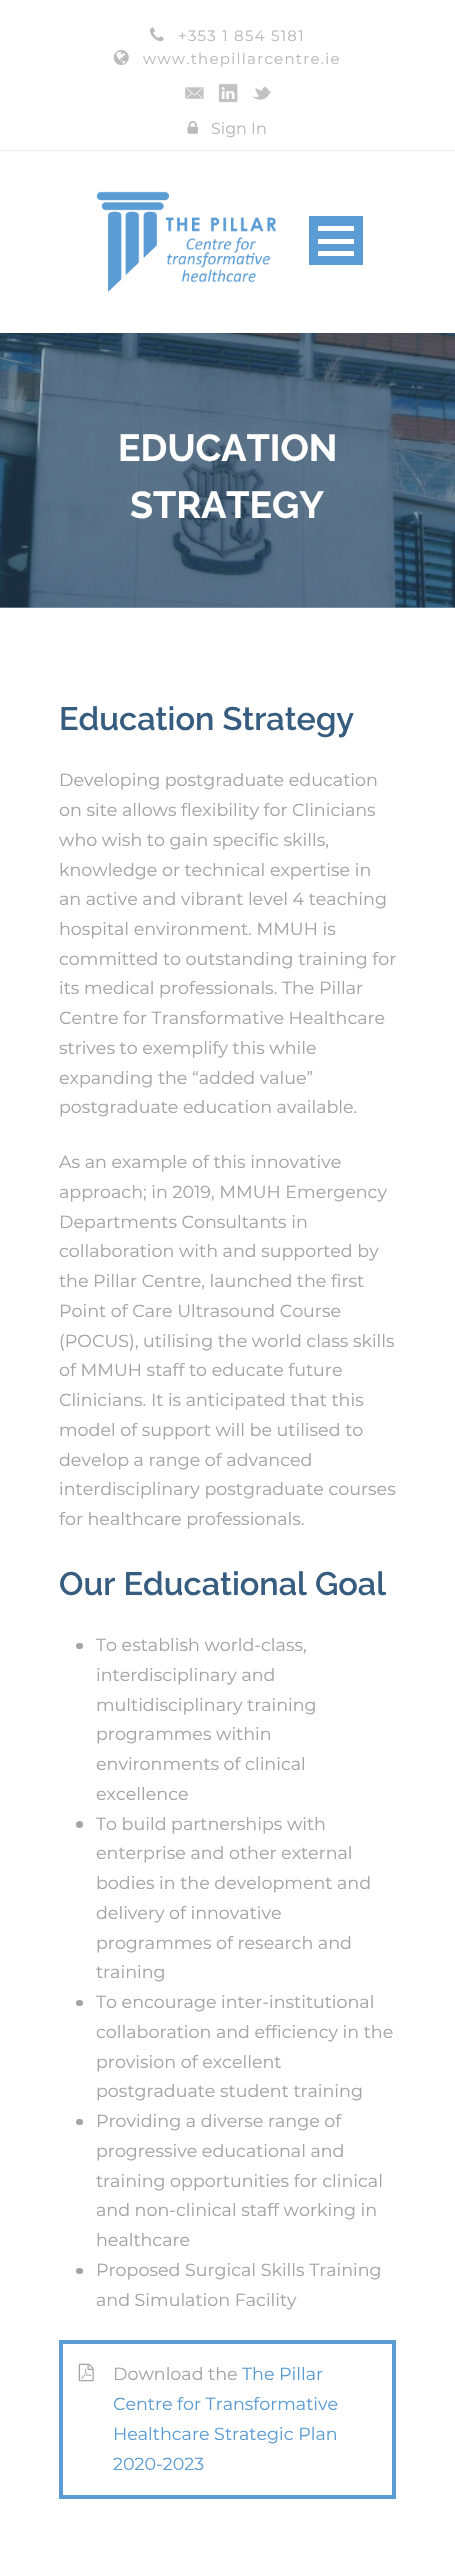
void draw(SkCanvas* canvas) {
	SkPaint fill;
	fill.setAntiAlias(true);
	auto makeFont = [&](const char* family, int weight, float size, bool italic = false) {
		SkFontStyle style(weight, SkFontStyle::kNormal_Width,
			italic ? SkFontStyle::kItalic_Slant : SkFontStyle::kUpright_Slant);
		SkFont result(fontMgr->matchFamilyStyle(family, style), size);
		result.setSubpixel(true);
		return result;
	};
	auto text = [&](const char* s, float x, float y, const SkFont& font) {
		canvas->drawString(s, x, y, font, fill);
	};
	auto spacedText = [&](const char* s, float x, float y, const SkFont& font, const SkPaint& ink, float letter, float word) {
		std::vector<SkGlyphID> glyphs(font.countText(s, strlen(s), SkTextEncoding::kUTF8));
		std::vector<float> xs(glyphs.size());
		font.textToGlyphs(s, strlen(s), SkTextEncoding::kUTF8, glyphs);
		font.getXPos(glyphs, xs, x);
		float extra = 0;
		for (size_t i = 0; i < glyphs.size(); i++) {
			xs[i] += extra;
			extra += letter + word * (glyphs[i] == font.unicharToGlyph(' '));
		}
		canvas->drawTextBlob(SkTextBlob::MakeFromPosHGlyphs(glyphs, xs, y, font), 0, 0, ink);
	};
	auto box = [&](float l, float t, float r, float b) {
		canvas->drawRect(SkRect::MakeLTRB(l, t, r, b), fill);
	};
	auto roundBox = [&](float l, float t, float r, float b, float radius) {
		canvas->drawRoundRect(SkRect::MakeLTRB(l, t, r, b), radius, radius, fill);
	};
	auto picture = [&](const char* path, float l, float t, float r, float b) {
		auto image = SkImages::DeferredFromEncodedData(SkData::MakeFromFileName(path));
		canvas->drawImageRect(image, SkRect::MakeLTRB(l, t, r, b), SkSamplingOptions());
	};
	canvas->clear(0xFFFFFFFF);
	fill.setColor(0xFF9BAEBF);
	box(0, 607, 455, 608);
	fill.setColor(0xFFEEEEEE);
	box(0, 150, 455, 151);
	picture("image0.png", 150, 27, 164, 42);
	picture("image1.png", 113, 50, 129, 65);
	picture("image2.png", 185, 87, 204, 99);
	picture("image3.png", 218, 83, 238, 103);
	picture("image4.png", 252, 86, 272, 100);
	picture("image5.png", 187, 121, 198, 134);
	picture("image6.png", 96, 191, 277, 292);
	fill.setColor(0xFF5B9CD4);
	box(309, 216, 363, 265);
	fill.setColor(0xFFFFFFFF);
	box(318, 251, 354, 256);
	box(318, 239, 354, 244);
	box(318, 226, 354, 231);
	picture("image7.png", 0, 333, 455, 608);
	fill.setColor(0xFFA4A4A4);
	roundBox(76, 1643, 83, 1649, 3);
	canvas->drawCircle(79.5f, 1824.5f, 3.5f, fill);
	roundBox(76, 2000, 83, 2006, 3);
	roundBox(76, 2119, 83, 2125, 3);
	roundBox(76, 2268, 83, 2274, 3);
	fill.setStyle(SkPaint::kStroke_Style);
	fill.setStrokeWidth(4);
	fill.setColor(0xFF5B9CD4);
	canvas->drawRect(SkRect::MakeLTRB(61, 2342, 394, 2497), fill);
	picture("image8.png", 78, 2363, 94, 2382);
	auto font1 = makeFont("Montserrat", 400, 15);
	fill.setStyle(SkPaint::kFill_Style);
	fill.setColor(0xFFBABABA);
	spacedText("+353 1 854 5181", 178, 41, font1, fill, 1.25f, 0);
	spacedText("www.thepillarcentre.ie", 143, 64, font1, fill, 1.25f, 0);
	auto font2 = makeFont("Montserrat", 400, 16);
	text("Sign In", 211, 134, font2);
	auto font3 = makeFont("Raleway", 700, 37.5f);
	fill.setColor(0xFFFFFFFF);
	text("EDUCATION", 118, 461, font3);
	text("STRATEGY", 130, 518, font3);
	auto font4 = makeFont("Raleway", 600, 32.5f);
	fill.setColor(0xFF365D7F);
	text("Education Strategy", 59, 730, font4);
	auto font5 = makeFont("Montserrat", 400, 17.5f);
	fill.setColor(0xFFA4A4A4);
	text("Developing postgraduate education", 59, 786, font5);
	text("on site allows flexibility for Clinicians", 59, 816, font5);
	text("who wish to gain specific skills,", 59, 846, font5);
	text("knowledge or technical expertise in", 59, 876, font5);
	text("an active and vibrant level 4 teaching", 59, 905, font5);
	text("hospital environment. MMUH is", 59, 935, font5);
	text("committed to outstanding training for", 59, 965, font5);
	text("its medical professionals. The Pillar", 59, 994, font5);
	text("Centre for Transformative Healthcare", 59, 1024, font5);
	text("strives to exemplify this while", 59, 1054, font5);
	text("expanding the “added value”", 59, 1084, font5);
	text("postgraduate education available.", 59, 1113, font5);
	text("As an example of this innovative", 59, 1168, font5);
	text("approach; in 2019, MMUH Emergency", 59, 1198, font5);
	text("Departments Consultants in", 59, 1228, font5);
	text("collaboration with and supported by", 59, 1257, font5);
	text("the Pillar Centre, launched the first", 59, 1287, font5);
	text("Point of Care Ultrasound Course", 59, 1317, font5);
	text("(POCUS), utilising the world class skills", 59, 1347, font5);
	text("of MMUH staff to educate future", 59, 1376, font5);
	text("Clinicians. It is anticipated that this", 59, 1406, font5);
	text("model of support will be utilised to", 59, 1436, font5);
	text("develop a range of advanced", 59, 1466, font5);
	text("interdisciplinary postgraduate courses", 59, 1495, font5);
	text("for healthcare professionals.", 59, 1525, font5);
	fill.setColor(0xFF365D7F);
	text("Our Educational Goal", 59, 1595, font4);
	fill.setColor(0xFFA4A4A4);
	text("To establish world-class,", 96, 1651, font5);
	text("interdisciplinary and", 96, 1681, font5);
	text("multidisciplinary training", 96, 1711, font5);
	text("programmes within", 96, 1740, font5);
	text("environments of clinical", 96, 1770, font5);
	text("excellence", 96, 1800, font5);
	text("To build partnerships with", 96, 1830, font5);
	text("enterprise and other external", 96, 1859, font5);
	text("bodies in the development and", 96, 1889, font5);
	text("delivery of innovative", 96, 1919, font5);
	text("programmes of research and", 96, 1949, font5);
	text("training", 96, 1978, font5);
	text("To encourage inter-institutional", 96, 2008, font5);
	text("collaboration and efficiency in the", 96, 2038, font5);
	text("provision of excellent", 96, 2068, font5);
	text("postgraduate student training", 96, 2097, font5);
	text("Providing a diverse range of", 96, 2127, font5);
	text("progressive educational and", 96, 2157, font5);
	text("training opportunities for clinical", 96, 2187, font5);
	text("and non-clinical staff working in", 96, 2216, font5);
	text("healthcare", 96, 2246, font5);
	text("Proposed Surgical Skills Training", 96, 2276, font5);
	text("and Simulation Facility", 96, 2306, font5);
	text("Download the", 113, 2380, font5);
	fill.setColor(0xFF5B9CD4);
	text("The Pillar", 242, 2380, font5);
	text("Centre for Transformative", 113, 2410, font5);
	text("Healthcare Strategic Plan", 113, 2440, font5);
	text("2020-2023", 113, 2470, font5);
}
